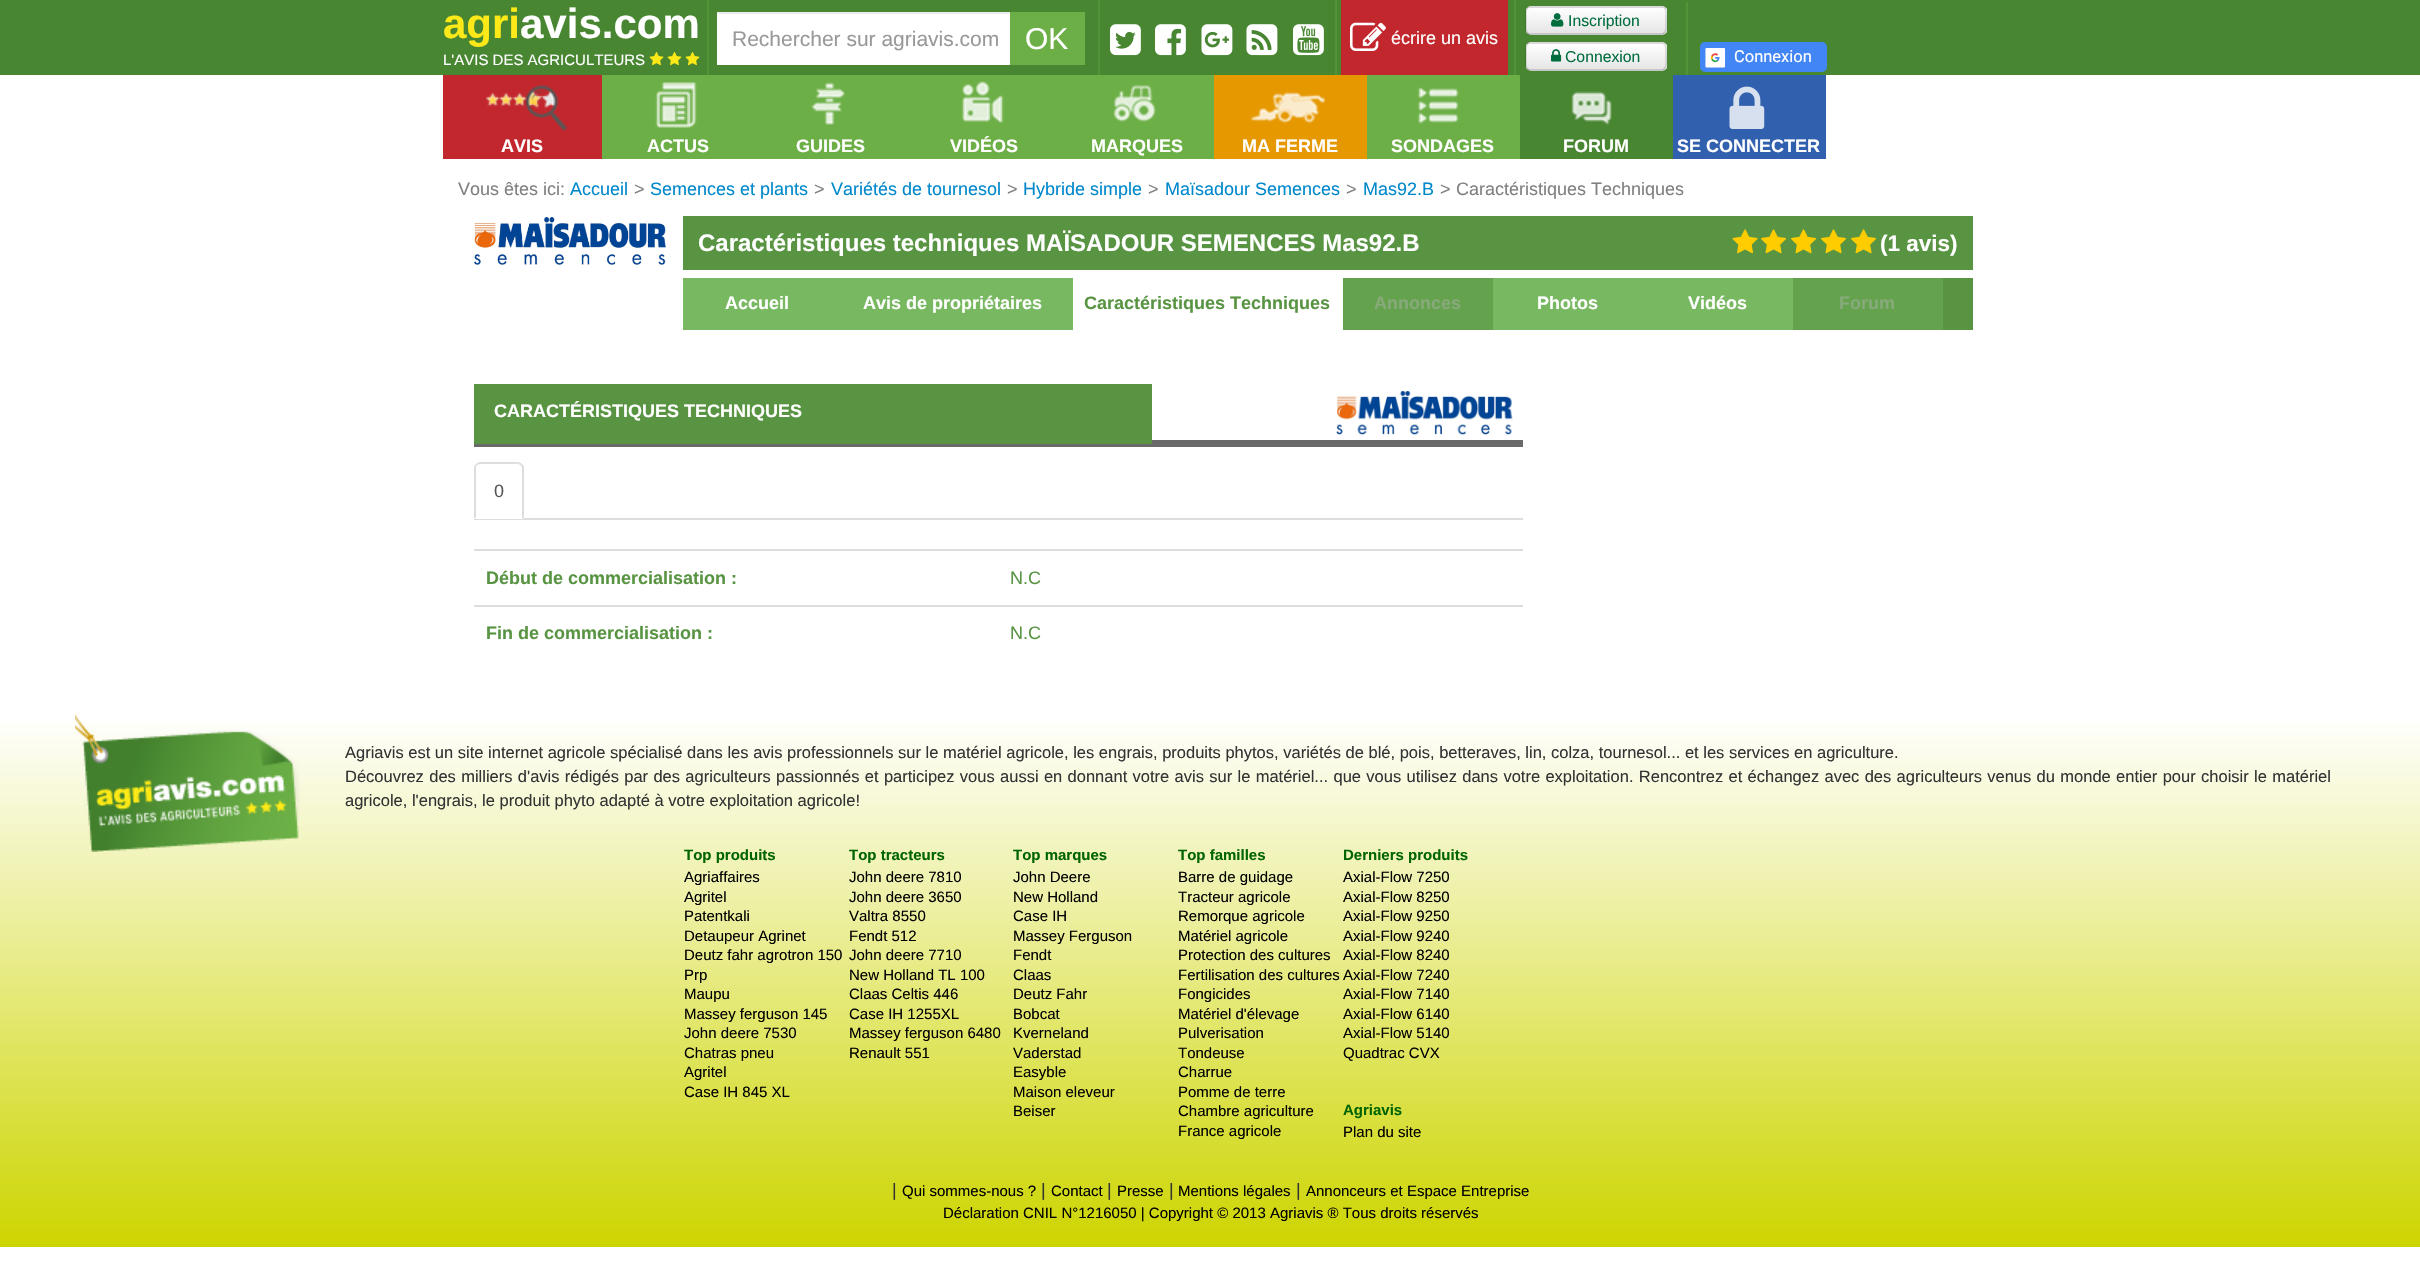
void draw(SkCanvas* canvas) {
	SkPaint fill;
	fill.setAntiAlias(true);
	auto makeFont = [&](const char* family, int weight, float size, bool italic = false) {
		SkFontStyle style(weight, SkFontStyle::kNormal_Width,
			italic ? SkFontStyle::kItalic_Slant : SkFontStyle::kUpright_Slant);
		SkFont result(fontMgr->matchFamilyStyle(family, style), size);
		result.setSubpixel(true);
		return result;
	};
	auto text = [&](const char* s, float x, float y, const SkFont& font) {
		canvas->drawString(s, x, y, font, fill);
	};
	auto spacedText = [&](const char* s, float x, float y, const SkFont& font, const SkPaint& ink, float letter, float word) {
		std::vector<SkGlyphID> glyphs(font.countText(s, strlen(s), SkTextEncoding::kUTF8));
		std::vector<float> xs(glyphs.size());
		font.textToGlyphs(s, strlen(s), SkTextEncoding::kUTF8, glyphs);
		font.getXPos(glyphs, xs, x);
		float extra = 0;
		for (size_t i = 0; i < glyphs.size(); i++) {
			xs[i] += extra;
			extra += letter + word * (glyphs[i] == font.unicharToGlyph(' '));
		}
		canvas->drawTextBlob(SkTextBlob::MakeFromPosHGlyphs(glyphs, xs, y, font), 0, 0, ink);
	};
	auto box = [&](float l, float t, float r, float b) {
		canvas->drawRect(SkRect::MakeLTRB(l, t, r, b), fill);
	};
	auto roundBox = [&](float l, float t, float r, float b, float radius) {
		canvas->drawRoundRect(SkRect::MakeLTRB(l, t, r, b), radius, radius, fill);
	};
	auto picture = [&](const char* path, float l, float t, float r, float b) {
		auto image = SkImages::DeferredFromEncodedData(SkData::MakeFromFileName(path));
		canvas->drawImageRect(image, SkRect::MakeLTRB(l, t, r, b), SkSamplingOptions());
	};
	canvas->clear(0xFFFFFFFF);
	fill.setColor(0xFF488631);
	box(0, 0, 2420, 75);
	picture("image0.png", 649, 52, 664, 66);
	picture("image0.png", 667, 52, 682, 66);
	picture("image0.png", 685, 52, 700, 66);
	fill.setColor(0xFF529337);
	box(707, 0, 709, 75);
	fill.setColor(0xFFFFFFFF);
	box(717, 14, 1010, 65);
	fill.setColor(0xFFECECEC);
	box(717, 12, 1010, 14);
	fill.setColor(0xFF6CAF46);
	box(1010, 12, 1085, 65);
	fill.setColor(0xFF529337);
	box(1098, 0, 1100, 75);
	picture("image1.png", 1110, 24, 1141, 56);
	picture("image2.png", 1155, 24, 1186, 56);
	picture("image3.png", 1201, 24, 1233, 56);
	picture("image4.png", 1246, 24, 1278, 56);
	picture("image5.png", 1293, 24, 1324, 56);
	box(1335, 0, 1337, 75);
	fill.setColor(0xFFC2272D);
	box(1341, 0, 1508, 75);
	picture("image6.png", 1350, 22, 1386, 51);
	fill.setColor(0xFF529337);
	box(1514, 0, 1516, 75);
	fill.setColor(0xFFF5F5F5);
	roundBox(1526, 6, 1667, 35, 5);
	canvas->save();
	canvas->clipPath(SkPathBuilder().moveTo(1531, 6).lineTo(1662, 6).cubicTo(1665, 6, 1667, 8, 1667, 11).lineTo(1667, 30).cubicTo(1667, 33, 1665, 35, 1662, 35).lineTo(1531, 35).cubicTo(1528, 35, 1526, 33, 1526, 30).lineTo(1526, 11).cubicTo(1526, 8, 1528, 6, 1531, 6).close().detach(), true);
	{
		const SkColor colors[] = {0xFFFFFFFF, 0xFFE6E6E6};
		const float stops[] = {0, 1};
		const SkPoint ends[] = {{1596, 7.5f}, {1596, 33}};
		fill.setShader(SkGradientShader::MakeLinear(ends, colors, stops, 2, SkTileMode::kClamp));
		fill.setAlpha(255);
	}
	box(1526, 8, 1667, 33);
	canvas->restore();
	fill.setStyle(SkPaint::kStroke_Style);
	fill.setStrokeWidth(1.5f);
	fill.setShader(nullptr);
	fill.setColor(0x40000000);
	canvas->drawPath(SkPathBuilder().moveTo(1664.5f, 32.5f).cubicTo(1664, 33.5f, 1663, 34, 1662, 34).lineTo(1530, 34).cubicTo(1529, 34, 1528, 33.5f, 1527.5f, 32.5f).detach(), fill);
	fill.setColor(0x26000000);
	canvas->drawPath(SkPathBuilder().moveTo(1527.5f, 32.5f).cubicTo(1525, 30.5f, 1526, 23, 1526, 20).lineTo(1526, 14).cubicTo(1526, 11, 1526, 7, 1530, 7).lineTo(1662, 7).cubicTo(1666, 7, 1666, 11, 1666, 13.5f).lineTo(1666, 20).cubicTo(1666, 23, 1667, 30.5f, 1664.5f, 32.5f).detach(), fill);
	picture("image7.png", 1551, 13, 1564, 27);
	fill.setStyle(SkPaint::kFill_Style);
	fill.setColor(0xFFF5F5F5);
	roundBox(1526, 42, 1667, 71, 5);
	canvas->save();
	canvas->clipPath(SkPathBuilder().moveTo(1531, 42).lineTo(1662, 42).cubicTo(1665, 42, 1667, 44, 1667, 47).lineTo(1667, 66).cubicTo(1667, 69, 1665, 71, 1662, 71).lineTo(1531, 71).cubicTo(1528, 71, 1526, 69, 1526, 66).lineTo(1526, 47).cubicTo(1526, 44, 1528, 42, 1531, 42).close().detach(), true);
	{
		const SkColor colors[] = {0xFFFFFFFF, 0xFFE6E6E6};
		const float stops[] = {0, 1};
		const SkPoint ends[] = {{1596, 43}, {1596, 69}};
		fill.setShader(SkGradientShader::MakeLinear(ends, colors, stops, 2, SkTileMode::kClamp));
		fill.setAlpha(255);
	}
	box(1526, 44, 1667, 69);
	canvas->restore();
	fill.setStyle(SkPaint::kStroke_Style);
	fill.setShader(nullptr);
	fill.setColor(0x40000000);
	canvas->drawPath(SkPathBuilder().moveTo(1664.5f, 68.5f).cubicTo(1664, 69.5f, 1663, 70, 1662, 70).lineTo(1530, 70).cubicTo(1529, 70, 1528, 69.5f, 1527.5f, 68.5f).detach(), fill);
	fill.setColor(0x26000000);
	canvas->drawPath(SkPathBuilder().moveTo(1527.5f, 68.5f).cubicTo(1525, 66.5f, 1526, 59, 1526, 56).lineTo(1526, 50).cubicTo(1526, 47, 1526, 43, 1530, 43).lineTo(1662, 43).cubicTo(1666, 43, 1666, 47, 1666, 50).lineTo(1666, 56).cubicTo(1666, 59, 1667, 66.5f, 1664.5f, 68.5f).detach(), fill);
	picture("image8.png", 1551, 49, 1562, 62);
	fill.setStyle(SkPaint::kFill_Style);
	fill.setColor(0xFF529337);
	box(1686, 2, 1688, 77);
	fill.setColor(0xFF4285F4);
	canvas->drawRoundRect(SkRect::MakeLTRB(1701, 43, 1826, 71), 4, 4, fill);
	fill.setStyle(SkPaint::kStroke_Style);
	fill.setStrokeWidth(2);
	canvas->drawRoundRect(SkRect::MakeLTRB(1701, 43, 1826, 71), 4, 4, fill);
	picture("image9.png", 1705, 48, 1726, 68);
	fill.setStyle(SkPaint::kFill_Style);
	fill.setColor(0xFFC2272D);
	box(443, 75, 602, 159);
	picture("image10.png", 485, 85, 568, 131);
	fill.setColor(0xFF6CAF46);
	box(602, 75, 1214, 159);
	picture("image11.png", 655, 82, 697, 128);
	picture("image12.png", 811, 82, 845, 125);
	picture("image13.png", 961, 81, 1004, 124);
	picture("image14.png", 1113, 85, 1156, 122);
	fill.setColor(0xFFE69800);
	box(1214, 75, 1367, 159);
	picture("image15.png", 1250, 91, 1325, 124);
	fill.setColor(0xFF6CAF46);
	box(1367, 75, 1520, 159);
	picture("image16.png", 1417, 87, 1459, 124);
	fill.setColor(0xFF488631);
	box(1520, 75, 1673, 159);
	picture("image17.png", 1571, 91, 1612, 125);
	fill.setColor(0xFF3160AE);
	box(1673, 75, 1826, 159);
	picture("image18.png", 1729, 86, 1765, 129);
	picture("image19.png", 474, 217, 666, 265);
	fill.setColor(0xFF589442);
	box(683, 216, 1973, 270);
	picture("image20.png", 1732, 229, 1758, 254);
	picture("image21.png", 1761, 229, 1786, 254);
	picture("image21.png", 1791, 229, 1816, 254);
	picture("image21.png", 1821, 229, 1846, 254);
	picture("image21.png", 1851, 229, 1876, 254);
	box(1943, 278, 1973, 330);
	fill.setColor(0xFF78B861);
	box(683, 278, 1073, 330);
	fill.setColor(0xFF65A24E);
	box(1343, 278, 1493, 330);
	fill.setColor(0xFF78B861);
	box(1493, 278, 1793, 330);
	fill.setColor(0xFF65A24E);
	box(1793, 278, 1943, 330);
	fill.setColor(0xFF696969);
	box(474, 440, 1523, 447);
	fill.setColor(0xFF589442);
	box(474, 384, 1152, 444);
	picture("image22.png", 1336, 391, 1513, 435);
	fill.setColor(0xFFDDDDDD);
	box(474, 518, 1523, 520);
	fill.setColor(0xFFFFFFFF);
	canvas->drawPath(SkPathBuilder().moveTo(480, 462).lineTo(518, 462).cubicTo(521.5f, 462, 524, 464.5f, 524, 468).lineTo(524, 519).lineTo(474, 519).lineTo(474, 468).cubicTo(474, 464.5f, 476.5f, 462, 480, 462).close().detach(), fill);
	fill.setColor(0xFFDDDDDD);
	canvas->drawPath(SkPathBuilder().moveTo(480, 462).cubicTo(478, 462, 477, 463, 476, 464).lineTo(477, 465).lineTo(480, 464).lineTo(512, 464).cubicTo(514, 464, 518, 463, 520, 465).lineTo(522, 464).cubicTo(521, 463, 519, 462, 518, 462).close().detach(), fill);
	canvas->drawPath(SkPathBuilder().moveTo(524, 466).lineTo(524, 519).lineTo(522, 518).lineTo(522, 467).lineTo(520, 465).lineTo(522, 464).close().moveTo(474, 519).lineTo(476, 517).lineTo(476, 467).lineTo(477, 465).lineTo(476, 464).cubicTo(475, 465, 474, 466, 474, 468).close().detach(), fill);
	box(474, 549, 1523, 551);
	box(474, 605, 1523, 607);
	{
		const SkColor colors[] = {0xFFFFFFFF, 0xFFCDD500};
		const float stops[] = {0, 1};
		const SkPoint ends[] = {{1211, 714}, {1211, 1247}};
		fill.setShader(SkGradientShader::MakeLinear(ends, colors, stops, 2, SkTileMode::kClamp));
		fill.setAlpha(255);
	}
	box(0, 719, 2420, 1247);
	picture("image23.png", 75, 714, 300, 852);
	auto font1 = makeFont("Liberation Sans", 700, 42);
	fill.setShader(nullptr);
	fill.setColor(0xFFFDE918);
	text("agri", 443, 38, font1);
	fill.setColor(0xFFFFFFFF);
	text("avis.com", 520, 38, font1);
	auto font2 = makeFont("Liberation Sans", 400, 15);
	text("L'AVIS DES AGRICULTEURS", 443, 65, font2);
	auto font3 = makeFont("Liberation Sans", 400, 21);
	fill.setColor(0xFF999999);
	text("Rechercher sur agriavis.com", 732, 46, font3);
	auto font4 = makeFont("Liberation Sans", 400, 30);
	fill.setColor(0xFFFFFFFF);
	text("OK", 1025, 49, font4);
	auto font5 = makeFont("Liberation Sans", 400, 18);
	text("écrire un avis", 1391, 44, font5);
	auto font6 = makeFont("Liberation Sans", 400, 15.75f);
	fill.setColor(0xFF006D3E);
	text("Inscription", 1568, 26, font6);
	text("Connexion", 1565, 62, font6);
	auto font7 = makeFont("Roboto", 400, 16.5f);
	fill.setColor(0xFFFFFFFF);
	text("Connexion", 1734, 62, font7);
	auto font8 = makeFont("Liberation Sans", 700, 18);
	text("AVIS", 501, 152, font8);
	text("ACTUS", 647, 152, font8);
	text("GUIDES", 796, 152, font8);
	text("VIDÉOS", 950, 152, font8);
	text("MARQUES", 1091, 152, font8);
	text("MA FERME", 1242, 152, font8);
	text("SONDAGES", 1391, 152, font8);
	text("FORUM", 1563, 152, font8);
	text("SE CONNECTER", 1677, 152, font8);
	fill.setColor(0xFF808080);
	text("Vous êtes ici:", 458, 195, font5);
	fill.setColor(0xFF0088CC);
	text("Accueil", 570, 195, font5);
	fill.setColor(0xFF808080);
	text(">", 634, 195, font5);
	fill.setColor(0xFF0088CC);
	text("Semences et plants", 650, 195, font5);
	fill.setColor(0xFF808080);
	text(">", 814, 195, font5);
	fill.setColor(0xFF0088CC);
	text("Variétés de tournesol", 831, 195, font5);
	fill.setColor(0xFF808080);
	text(">", 1007, 195, font5);
	fill.setColor(0xFF0088CC);
	text("Hybride simple", 1023, 195, font5);
	fill.setColor(0xFF808080);
	text(">", 1148, 195, font5);
	fill.setColor(0xFF0088CC);
	text("Maïsadour Semences", 1165, 195, font5);
	fill.setColor(0xFF808080);
	text(">", 1346, 195, font5);
	fill.setColor(0xFF0088CC);
	text("Mas92.B", 1363, 195, font5);
	fill.setColor(0xFF808080);
	text(">", 1440, 195, font5);
	text("Caractéristiques Techniques", 1456, 195, font5);
	auto font9 = makeFont("Liberation Sans", 700, 24);
	fill.setColor(0xFFFFFFFF);
	text("Caractéristiques techniques MAÏSADOUR SEMENCES Mas92.B", 698, 251, font9);
	auto font10 = makeFont("Liberation Sans", 700, 22.5f);
	text("(1 avis)", 1880, 251, font10);
	text("Accueil", 725, 309, font8);
	text("Avis de propriétaires", 863, 309, font8);
	fill.setColor(0xFF589442);
	text("Caractéristiques Techniques", 1084, 309, font8);
	fill.setColor(0xFF86AA79);
	text("Annonces", 1374, 309, font8);
	fill.setColor(0xFFFFFFFF);
	text("Photos", 1537, 309, font8);
	text("Vidéos", 1688, 309, font8);
	fill.setColor(0xFF86AA79);
	text("Forum", 1839, 309, font8);
	fill.setColor(0xFFFFFFFF);
	text("CARACTÉRISTIQUES TECHNIQUES", 494, 417, font8);
	fill.setColor(0xFF555555);
	text("0", 494, 497, font5);
	fill.setColor(0xFF589442);
	text("Début de commercialisation :", 486, 584, font8);
	text("N.C", 1010, 584, font5);
	text("Fin de commercialisation :", 486, 639, font8);
	text("N.C", 1010, 639, font5);
	auto font11 = makeFont("Liberation Sans", 400, 16.5f);
	fill.setColor(0xFF333333);
	text("Agriavis est un site internet agricole spécialisé dans les avis professionnels sur le matériel agricole, les engrais, produits phytos, variétés de blé, pois, betteraves, lin, colza, tournesol... et les services en agriculture.", 345, 758, font11);
	spacedText("Découvrez des milliers d'avis rédigés par des agriculteurs passionnés et participez vous aussi en donnant votre avis sur le matériel... que vous utilisez dans votre exploitation. Rencontrez et échangez avec des agriculteurs venus du monde entier pour choisir le matériel", 345, 782, font11, fill, 0, 0.75f);
	text("agricole, l'engrais, le produit phyto adapté à votre exploitation agricole!", 345, 806, font11);
	auto font12 = makeFont("Liberation Sans", 700, 15);
	fill.setColor(0xFF006400);
	text("Top produits", 684, 860, font12);
	fill.setColor(0xFF000000);
	text("Agriaffaires", 684, 882, font2);
	text("Agritel", 684, 902, font2);
	text("Patentkali", 684, 921, font2);
	text("Detaupeur Agrinet", 684, 941, font2);
	text("Deutz fahr agrotron 150", 684, 960, font2);
	text("Prp", 684, 980, font2);
	text("Maupu", 684, 999, font2);
	text("Massey ferguson 145", 684, 1019, font2);
	text("John deere 7530", 684, 1038, font2);
	text("Chatras pneu", 684, 1058, font2);
	text("Agritel", 684, 1077, font2);
	text("Case IH 845 XL", 684, 1097, font2);
	fill.setColor(0xFF006400);
	text("Top tracteurs", 849, 860, font12);
	fill.setColor(0xFF000000);
	text("John deere 7810", 849, 882, font2);
	text("John deere 3650", 849, 902, font2);
	text("Valtra 8550", 849, 921, font2);
	text("Fendt 512", 849, 941, font2);
	text("John deere 7710", 849, 960, font2);
	text("New Holland TL 100", 849, 980, font2);
	text("Claas Celtis 446", 849, 999, font2);
	text("Case IH 1255XL", 849, 1019, font2);
	text("Massey ferguson 6480", 849, 1038, font2);
	text("Renault 551", 849, 1058, font2);
	fill.setColor(0xFF006400);
	text("Top marques", 1013, 860, font12);
	fill.setColor(0xFF000000);
	text("John Deere", 1013, 882, font2);
	text("New Holland", 1013, 902, font2);
	text("Case IH", 1013, 921, font2);
	text("Massey Ferguson", 1013, 941, font2);
	text("Fendt", 1013, 960, font2);
	text("Claas", 1013, 980, font2);
	text("Deutz Fahr", 1013, 999, font2);
	text("Bobcat", 1013, 1019, font2);
	text("Kverneland", 1013, 1038, font2);
	text("Vaderstad", 1013, 1058, font2);
	text("Easyble", 1013, 1077, font2);
	text("Maison eleveur", 1013, 1097, font2);
	text("Beiser", 1013, 1116, font2);
	fill.setColor(0xFF006400);
	text("Top familles", 1178, 860, font12);
	fill.setColor(0xFF000000);
	text("Barre de guidage", 1178, 882, font2);
	text("Tracteur agricole", 1178, 902, font2);
	text("Remorque agricole", 1178, 921, font2);
	text("Matériel agricole", 1178, 941, font2);
	text("Protection des cultures", 1178, 960, font2);
	text("Fertilisation des cultures", 1178, 980, font2);
	text("Fongicides", 1178, 999, font2);
	text("Matériel d'élevage", 1178, 1019, font2);
	text("Pulverisation", 1178, 1038, font2);
	text("Tondeuse", 1178, 1058, font2);
	text("Charrue", 1178, 1077, font2);
	text("Pomme de terre", 1178, 1097, font2);
	text("Chambre agriculture", 1178, 1116, font2);
	text("France agricole", 1178, 1136, font2);
	fill.setColor(0xFF006400);
	text("Derniers produits", 1343, 860, font12);
	fill.setColor(0xFF000000);
	text("Axial-Flow 7250", 1343, 882, font2);
	text("Axial-Flow 8250", 1343, 902, font2);
	text("Axial-Flow 9250", 1343, 921, font2);
	text("Axial-Flow 9240", 1343, 941, font2);
	text("Axial-Flow 8240", 1343, 960, font2);
	text("Axial-Flow 7240", 1343, 980, font2);
	text("Axial-Flow 7140", 1343, 999, font2);
	text("Axial-Flow 6140", 1343, 1019, font2);
	text("Axial-Flow 5140", 1343, 1038, font2);
	text("Quadtrac CVX", 1343, 1058, font2);
	fill.setColor(0xFF006400);
	text("Agriavis", 1343, 1115, font12);
	fill.setColor(0xFF000000);
	text("Plan du site", 1343, 1137, font2);
	fill.setColor(0xFF333333);
	text("|", 892, 1196, font5);
	fill.setColor(0xFF000000);
	text("Qui sommes-nous ?", 902, 1196, font2);
	fill.setColor(0xFF333333);
	text("|", 1041, 1196, font5);
	fill.setColor(0xFF000000);
	text("Contact", 1051, 1196, font2);
	fill.setColor(0xFF333333);
	text("|", 1107, 1196, font5);
	fill.setColor(0xFF000000);
	text("Presse", 1117, 1196, font2);
	fill.setColor(0xFF333333);
	text("|", 1169, 1196, font5);
	fill.setColor(0xFF000000);
	text("Mentions légales", 1178, 1196, font2);
	fill.setColor(0xFF333333);
	text("|", 1296, 1196, font5);
	fill.setColor(0xFF000000);
	text("Annonceurs et Espace Entreprise", 1306, 1196, font2);
	text("Déclaration CNIL N°1216050 | Copyright © 2013 Agriavis ® Tous droits réservés", 943, 1218, font2);
}
